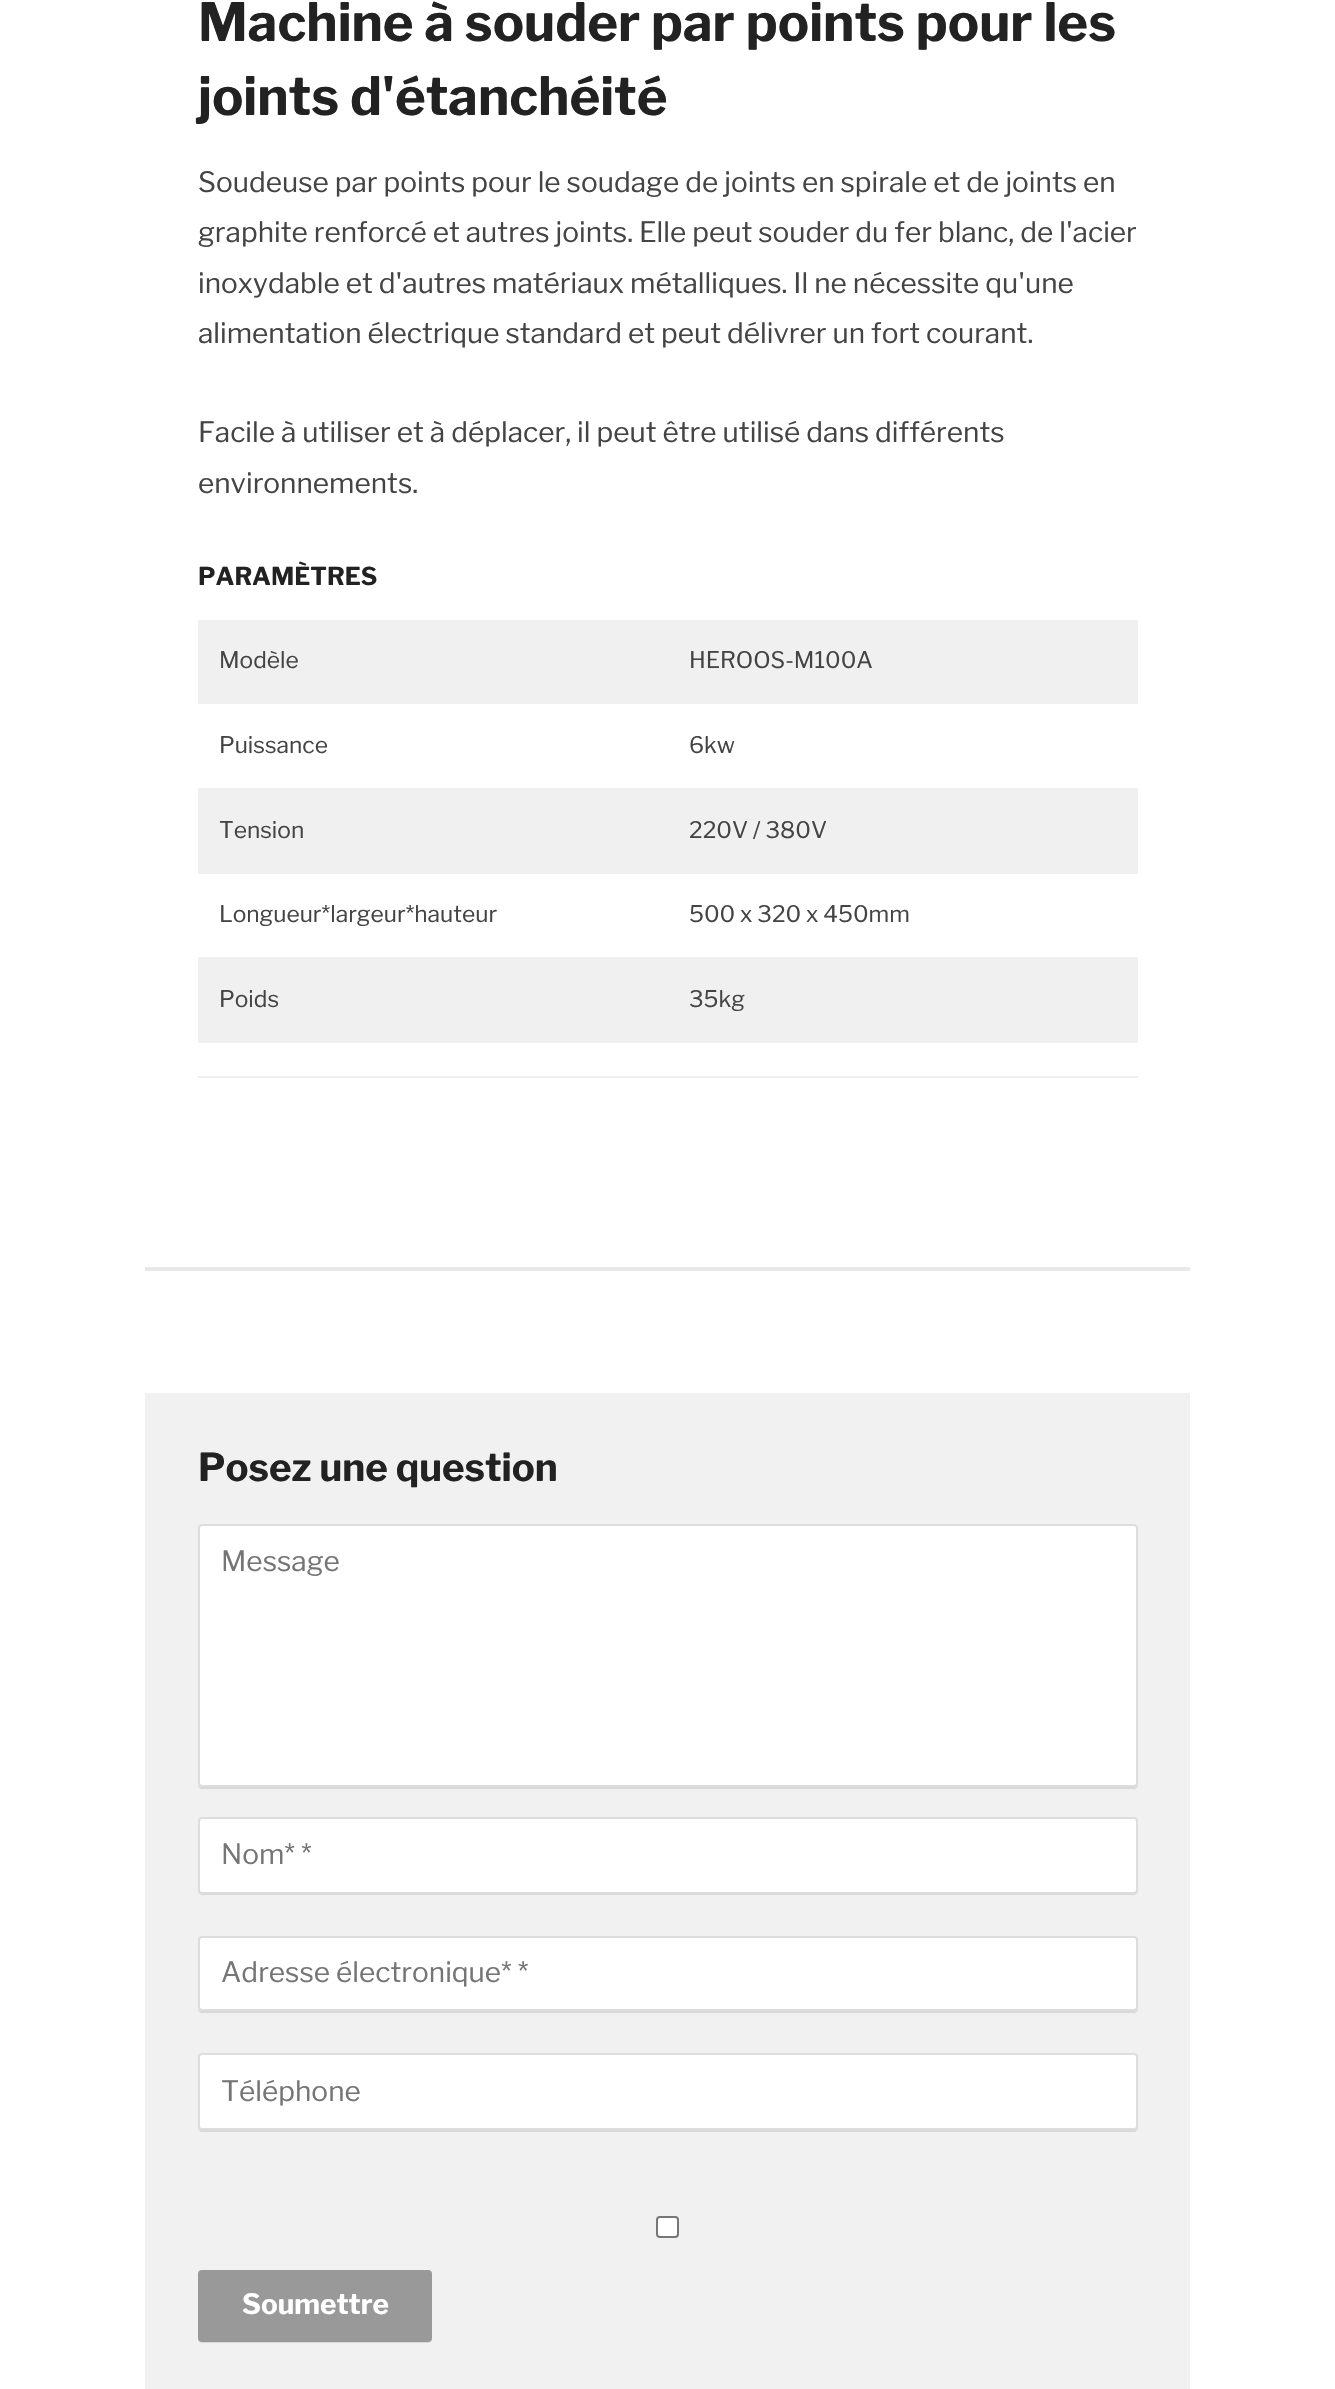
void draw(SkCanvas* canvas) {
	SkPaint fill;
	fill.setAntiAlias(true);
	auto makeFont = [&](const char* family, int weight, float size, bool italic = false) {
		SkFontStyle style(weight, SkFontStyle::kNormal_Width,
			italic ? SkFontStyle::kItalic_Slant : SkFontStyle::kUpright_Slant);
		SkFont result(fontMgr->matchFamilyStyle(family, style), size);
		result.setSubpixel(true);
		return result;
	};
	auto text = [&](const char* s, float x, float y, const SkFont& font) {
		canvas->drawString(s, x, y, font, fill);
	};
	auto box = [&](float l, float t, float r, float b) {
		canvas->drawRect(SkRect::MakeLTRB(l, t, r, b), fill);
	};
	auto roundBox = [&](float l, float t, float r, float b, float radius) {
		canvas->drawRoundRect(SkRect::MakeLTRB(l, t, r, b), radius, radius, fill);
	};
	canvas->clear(0xFFFFFFFF);
	fill.setColor(0xFFF0F0F0);
	box(198, 1076, 1138, 1078);
	box(198, 620, 1138, 704);
	box(198, 788, 1138, 874);
	box(198, 957, 1138, 1043);
	fill.setColor(0xFFE8E8E8);
	box(145, 1267, 1190, 1271);
	fill.setColor(0xFFF1F1F1);
	box(145, 1393, 1190, 2389);
	fill.setColor(0xFFD9D9D9);
	canvas->drawPath(SkPathBuilder().moveTo(198, 1785).cubicTo(198, 1787, 200, 1789, 202, 1789).lineTo(1134, 1789).cubicTo(1136, 1789, 1138, 1787, 1138, 1785).lineTo(1138, 1530).lineTo(1138, 1528).lineTo(1138, 1783).cubicTo(1138, 1785, 1136, 1787, 1134, 1787).lineTo(201, 1787).cubicTo(200, 1787, 199, 1786, 198, 1785).close().detach(), fill);
	fill.setColor(0xFFFFFFFF);
	canvas->drawRoundRect(SkRect::MakeLTRB(199, 1525, 1137, 1786), 3, 3, fill);
	fill.setStyle(SkPaint::kStroke_Style);
	fill.setStrokeWidth(2);
	fill.setColor(0xFFDDDDDD);
	canvas->drawRoundRect(SkRect::MakeLTRB(199, 1525, 1137, 1786), 3, 3, fill);
	fill.setStyle(SkPaint::kFill_Style);
	fill.setColor(0xFFD9D9D9);
	canvas->drawPath(SkPathBuilder().moveTo(198, 1891).cubicTo(198, 1893, 200, 1895, 202, 1895).lineTo(1134, 1895).cubicTo(1136, 1895, 1138, 1893, 1138, 1891).lineTo(1138, 1822).lineTo(1138, 1820).lineTo(1138, 1890).cubicTo(1138, 1892, 1136, 1894, 1134, 1894).lineTo(201, 1894).cubicTo(200, 1894, 199, 1893, 198, 1891).close().detach(), fill);
	fill.setColor(0xFFFFFFFF);
	canvas->drawRoundRect(SkRect::MakeLTRB(199, 1818, 1137, 1893), 3, 3, fill);
	fill.setStyle(SkPaint::kStroke_Style);
	fill.setColor(0xFFDDDDDD);
	canvas->drawRoundRect(SkRect::MakeLTRB(199, 1818, 1137, 1893), 3, 3, fill);
	fill.setStyle(SkPaint::kFill_Style);
	fill.setColor(0xFFD9D9D9);
	canvas->drawPath(SkPathBuilder().moveTo(198, 2009).cubicTo(198, 2011, 200, 2013, 202, 2013).lineTo(1134, 2013).cubicTo(1136, 2013, 1138, 2011, 1138, 2009).lineTo(1138, 1941).lineTo(1138, 1939).lineTo(1138, 2007).cubicTo(1138, 2009, 1136, 2011, 1134, 2011).lineTo(201, 2011).cubicTo(200, 2011, 199, 2010, 198, 2009).close().detach(), fill);
	fill.setColor(0xFFFFFFFF);
	canvas->drawRoundRect(SkRect::MakeLTRB(199, 1937, 1137, 2010), 3, 3, fill);
	fill.setStyle(SkPaint::kStroke_Style);
	fill.setColor(0xFFDDDDDD);
	canvas->drawRoundRect(SkRect::MakeLTRB(199, 1937, 1137, 2010), 3, 3, fill);
	fill.setStyle(SkPaint::kFill_Style);
	fill.setColor(0xFFD9D9D9);
	canvas->drawPath(SkPathBuilder().moveTo(198, 2128).cubicTo(198, 2130, 200, 2132, 202, 2132).lineTo(1134, 2132).cubicTo(1136, 2132, 1138, 2130, 1138, 2128).lineTo(1138, 2059).lineTo(1138, 2057).lineTo(1138, 2126).cubicTo(1138, 2128, 1136, 2130, 1134, 2130).lineTo(201, 2130).cubicTo(200, 2130, 199, 2129, 198, 2128).close().detach(), fill);
	fill.setColor(0xFFFFFFFF);
	canvas->drawRoundRect(SkRect::MakeLTRB(199, 2054, 1137, 2129), 3, 3, fill);
	fill.setStyle(SkPaint::kStroke_Style);
	fill.setColor(0xFFDDDDDD);
	canvas->drawRoundRect(SkRect::MakeLTRB(199, 2054, 1137, 2129), 3, 3, fill);
	fill.setStyle(SkPaint::kFill_Style);
	fill.setColor(0xFFFFFFFF);
	canvas->drawRoundRect(SkRect::MakeLTRB(657, 2217, 678, 2237), 3, 3, fill);
	fill.setStyle(SkPaint::kStroke_Style);
	fill.setColor(0xFF767676);
	canvas->drawRoundRect(SkRect::MakeLTRB(657, 2217, 678, 2237), 3, 3, fill);
	fill.setStyle(SkPaint::kFill_Style);
	fill.setColor(0xFFD9D9D9);
	canvas->drawPath(SkPathBuilder().moveTo(198, 2339).cubicTo(198, 2341, 200, 2343, 202, 2343).lineTo(428, 2343).cubicTo(430, 2343, 432, 2341, 432, 2339).cubicTo(431, 2341, 430, 2342, 429, 2342).lineTo(201, 2342).cubicTo(200, 2342, 199, 2341, 198, 2339).close().detach(), fill);
	fill.setColor(0xFF999999);
	roundBox(198, 2270, 432, 2342, 4);
	auto font1 = makeFont("Libre Franklin", 700, 52.5f);
	fill.setColor(0xFF222222);
	text("Machine à souder par points pour les", 198, 41, font1);
	text("joints d'étanchéité", 198, 115, font1);
	auto font2 = makeFont("Libre Franklin", 400, 28);
	fill.setColor(0xFF444444);
	text("Soudeuse par points pour le soudage de joints en spirale et de joints en", 198, 192, font2);
	text("graphite renforcé et autres joints. Elle peut souder du fer blanc, de l'acier", 198, 242, font2);
	text("inoxydable et d'autres matériaux métalliques. Il ne nécessite qu'une", 198, 293, font2);
	text("alimentation électrique standard et peut délivrer un fort courant.", 198, 343, font2);
	text("Facile à utiliser et à déplacer, il peut être utilisé dans différents", 198, 442, font2);
	text("environnements.", 198, 493, font2);
	auto font3 = makeFont("Libre Franklin", 700, 24.5f);
	fill.setColor(0xFF222222);
	text("PARAMÈTRES", 198, 585, font3);
	auto font4 = makeFont("Libre Franklin", 400, 22.75f);
	fill.setColor(0xFF444444);
	text("Modèle", 219, 668, font4);
	text("HEROOS-M100A", 689, 668, font4);
	text("Puissance", 219, 753, font4);
	text("6kw", 689, 753, font4);
	text("Tension", 219, 838, font4);
	text("220V / 380V", 689, 838, font4);
	text("Longueur*largeur*hauteur", 219, 922, font4);
	text("500 x 320 x 450mm", 689, 922, font4);
	text("Poids", 219, 1007, font4);
	text("35kg", 689, 1007, font4);
	auto font5 = makeFont("Libre Franklin", 700, 38.5f);
	fill.setColor(0xFF222222);
	text("Posez une question", 198, 1481, font5);
	fill.setColor(0xFF757575);
	text("Message", 221, 1571, font2);
	text("Nom* *", 221, 1864, font2);
	text("Adresse électronique* *", 221, 1982, font2);
	text("Téléphone", 221, 2101, font2);
	auto font6 = makeFont("Libre Franklin", 700, 28);
	fill.setColor(0xFFFFFFFF);
	text("Soumettre", 242, 2314, font6);
}
